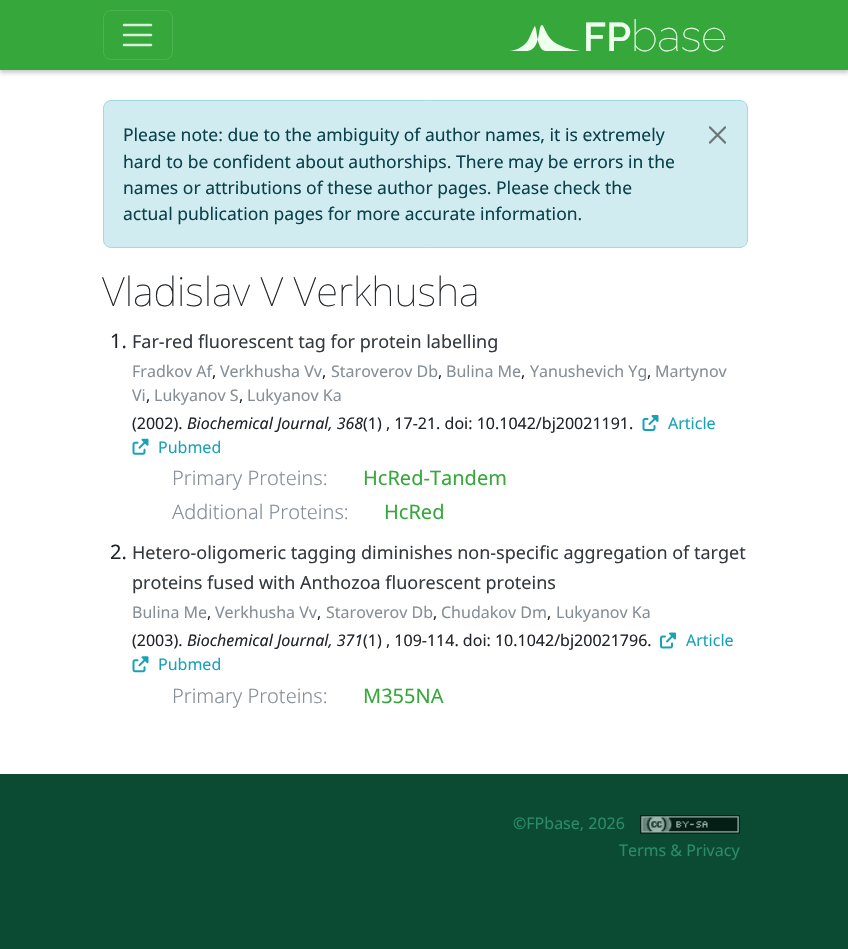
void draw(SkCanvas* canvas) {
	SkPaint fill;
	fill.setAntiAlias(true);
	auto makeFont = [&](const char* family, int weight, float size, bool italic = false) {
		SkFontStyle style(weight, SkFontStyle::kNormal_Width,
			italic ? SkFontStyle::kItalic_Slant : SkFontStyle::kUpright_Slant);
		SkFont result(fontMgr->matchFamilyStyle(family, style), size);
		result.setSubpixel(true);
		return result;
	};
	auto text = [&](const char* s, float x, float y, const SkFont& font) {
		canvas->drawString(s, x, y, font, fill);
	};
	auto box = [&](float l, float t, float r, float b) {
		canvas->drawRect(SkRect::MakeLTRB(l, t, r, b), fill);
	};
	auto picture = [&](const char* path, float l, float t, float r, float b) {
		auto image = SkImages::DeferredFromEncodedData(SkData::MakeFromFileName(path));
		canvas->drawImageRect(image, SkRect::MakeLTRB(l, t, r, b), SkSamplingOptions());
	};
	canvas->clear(0xFFFFFFFF);
	fill.setColor(0x33000000);
	fill.setMaskFilter(SkMaskFilter::MakeBlur(kNormal_SkBlurStyle, 2));
	canvas->drawRect(SkRect::MakeLTRB(0, 3, 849, 73), fill);
	fill.setMaskFilter(nullptr);
	fill.setColor(0xFF36A83B);
	box(0, 0, 848, 70);
	fill.setStyle(SkPaint::kStroke_Style);
	fill.setStrokeWidth(1);
	fill.setColor(0xFF4AB14F);
	canvas->drawRoundRect(SkRect::MakeLTRB(103.5f, 10.5f, 172.5f, 59.5f), 7.5f, 7.5f, fill);
	fill.setStrokeWidth(2.5f);
	fill.setStrokeCap(SkPaint::kRound_Cap);
	fill.setColor(0xFFD7EED8);
	canvas->drawPath(SkPathBuilder().moveTo(124, 25).lineTo(151, 25).moveTo(124, 35).lineTo(151, 35).moveTo(124, 45).lineTo(151, 45).detach(), fill);
	fill.setStyle(SkPaint::kFill_Style);
	fill.setColor(0xFFEEFFEE);
	canvas->drawPath(SkPathBuilder(SkPathFillType::kEvenOdd).moveTo(581, 51).cubicTo(581, 51, 566, 50, 554, 42).cubicTo(546, 36, 544, 25, 542, 25).cubicTo(539, 26, 540, 32, 537, 42).cubicTo(534, 51, 527, 51, 527, 51).close().moveTo(546, 51).cubicTo(538, 51, 537, 34, 536, 29).lineTo(535, 26).cubicTo(534, 26, 529, 40, 527, 42).cubicTo(523, 47, 515, 51, 509, 51).close().detach(), fill);
	fill.setColor(0xFFD1ECF1);
	canvas->drawRoundRect(SkRect::MakeLTRB(103.5f, 100.5f, 747.5f, 247.5f), 7.5f, 7.5f, fill);
	fill.setStyle(SkPaint::kStroke_Style);
	fill.setStrokeWidth(1);
	fill.setStrokeCap(SkPaint::kButt_Cap);
	fill.setColor(0xFFA2DAE3);
	canvas->drawRoundRect(SkRect::MakeLTRB(103.5f, 100.5f, 747.5f, 247.5f), 7.5f, 7.5f, fill);
	picture("image0.png", 709, 126, 726, 144);
	picture("image1.png", 642, 415, 659, 431);
	picture("image2.png", 132, 438, 149, 455);
	picture("image3.png", 660, 632, 676, 649);
	picture("image4.png", 132, 656, 149, 673);
	fill.setStyle(SkPaint::kFill_Style);
	fill.setColor(0xFF0C4B33);
	canvas->drawPath(SkPathBuilder().moveTo(-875, 774).lineTo(-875, 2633).lineTo(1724, 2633).lineTo(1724, 774).lineTo(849, 774).lineTo(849, 882).lineTo(0, 882).lineTo(0, 774).close().detach(), fill);
	box(0, 774, 848, 882);
	picture("image5.png", 640, 815, 740, 834);
	auto font1 = makeFont("Raleway", 600, 40);
	fill.setColor(0xFFEEFFEE);
	text("FP", 583, 51, font1);
	auto font2 = makeFont("Raleway", 100, 44);
	text("base", 631, 51, font2);
	auto font3 = makeFont("Noto Sans", 400, 17.5f);
	fill.setColor(0xFF09414A);
	text("Please note: due to the ambiguity of author names, it is extremely", 123, 141, font3);
	text("hard to be confident about authorships. There may be errors in the", 123, 168, font3);
	text("names or attributions of these author pages. Please check the", 123, 194, font3);
	text("actual publication pages for more accurate information.", 123, 220, font3);
	auto font4 = makeFont("Noto Sans", 100, 40.25f);
	fill.setColor(0xFF212529);
	text("Vladislav V Verkhusha", 102, 306, font4);
	auto font5 = makeFont("Noto Sans", 400, 20);
	text("1.", 110, 348, font5);
	auto font6 = makeFont("Noto Sans", 400, 18);
	fill.setColor(0xFF343A40);
	text("Far-red fluorescent tag for protein labelling", 132, 348, font6);
	auto font7 = makeFont("Noto Sans", 400, 16);
	fill.setColor(0xFF868E96);
	text("Fradkov Af", 132, 377, font7);
	fill.setColor(0xFF212529);
	text(",", 212, 377, font7);
	fill.setColor(0xFF868E96);
	text("Verkhusha Vv", 220, 377, font7);
	fill.setColor(0xFF212529);
	text(",", 322, 377, font7);
	fill.setColor(0xFF868E96);
	text("Staroverov Db", 331, 377, font7);
	fill.setColor(0xFF212529);
	text(",", 438, 377, font7);
	fill.setColor(0xFF868E96);
	text("Bulina Me", 446, 377, font7);
	fill.setColor(0xFF212529);
	text(",", 521, 377, font7);
	fill.setColor(0xFF868E96);
	text("Yanushevich Yg", 530, 377, font7);
	fill.setColor(0xFF212529);
	text(",", 647, 377, font7);
	fill.setColor(0xFF868E96);
	text("Martynov", 655, 377, font7);
	text("Vi", 132, 401, font7);
	text("Lukyanov S", 154, 401, font7);
	text("Lukyanov Ka", 247, 401, font7);
	fill.setColor(0xFF212529);
	text(",", 146, 401, font7);
	text(",", 239, 401, font7);
	text("(2002).", 132, 429, font7);
	auto font8 = makeFont("Noto Sans", 400, 16, true);
	text("Biochemical Journal, 368", 187, 429, font8);
	text("(1) , 17-21. doi: 10.1042/bj20021191.", 363, 429, font7);
	fill.setColor(0xFF17A2B8);
	text("Article", 668, 429, font7);
	text("Pubmed", 158, 453, font7);
	auto font9 = makeFont("Noto Sans", 300, 20);
	fill.setColor(0xFF868E96);
	text("Primary Proteins:", 172, 485, font9);
	fill.setColor(0xFF36A83B);
	text("HcRed-Tandem", 363, 485, font5);
	fill.setColor(0xFF868E96);
	text("Additional Proteins:", 172, 519, font9);
	fill.setColor(0xFF36A83B);
	text("HcRed", 384, 519, font5);
	fill.setColor(0xFF212529);
	text("2.", 110, 559, font5);
	fill.setColor(0xFF343A40);
	text("Hetero-oligomeric tagging diminishes non-specific aggregation of target", 132, 559, font6);
	text("proteins fused with Anthozoa fluorescent proteins", 132, 589, font6);
	fill.setColor(0xFF868E96);
	text("Bulina Me", 132, 618, font7);
	fill.setColor(0xFF212529);
	text(",", 207, 618, font7);
	fill.setColor(0xFF868E96);
	text("Verkhusha Vv", 215, 618, font7);
	fill.setColor(0xFF212529);
	text(",", 317, 618, font7);
	fill.setColor(0xFF868E96);
	text("Staroverov Db", 326, 618, font7);
	fill.setColor(0xFF212529);
	text(",", 433, 618, font7);
	fill.setColor(0xFF868E96);
	text("Chudakov Dm", 441, 618, font7);
	fill.setColor(0xFF212529);
	text(",", 547, 618, font7);
	fill.setColor(0xFF868E96);
	text("Lukyanov Ka", 556, 618, font7);
	fill.setColor(0xFF212529);
	text("(2003).", 132, 646, font7);
	text("Biochemical Journal, 371", 187, 646, font8);
	text("(1) , 109-114. doi: 10.1042/bj20021796.", 363, 646, font7);
	fill.setColor(0xFF17A2B8);
	text("Article", 686, 646, font7);
	text("Pubmed", 158, 670, font7);
	fill.setColor(0xFF868E96);
	text("Primary Proteins:", 172, 703, font9);
	fill.setColor(0xFF36A83B);
	text("M355NA", 363, 703, font5);
	fill.setColor(0xFF2B8C67);
	text("©FPbase, 2026", 513, 829, font7);
	text("Terms & Privacy", 619, 856, font7);
}
